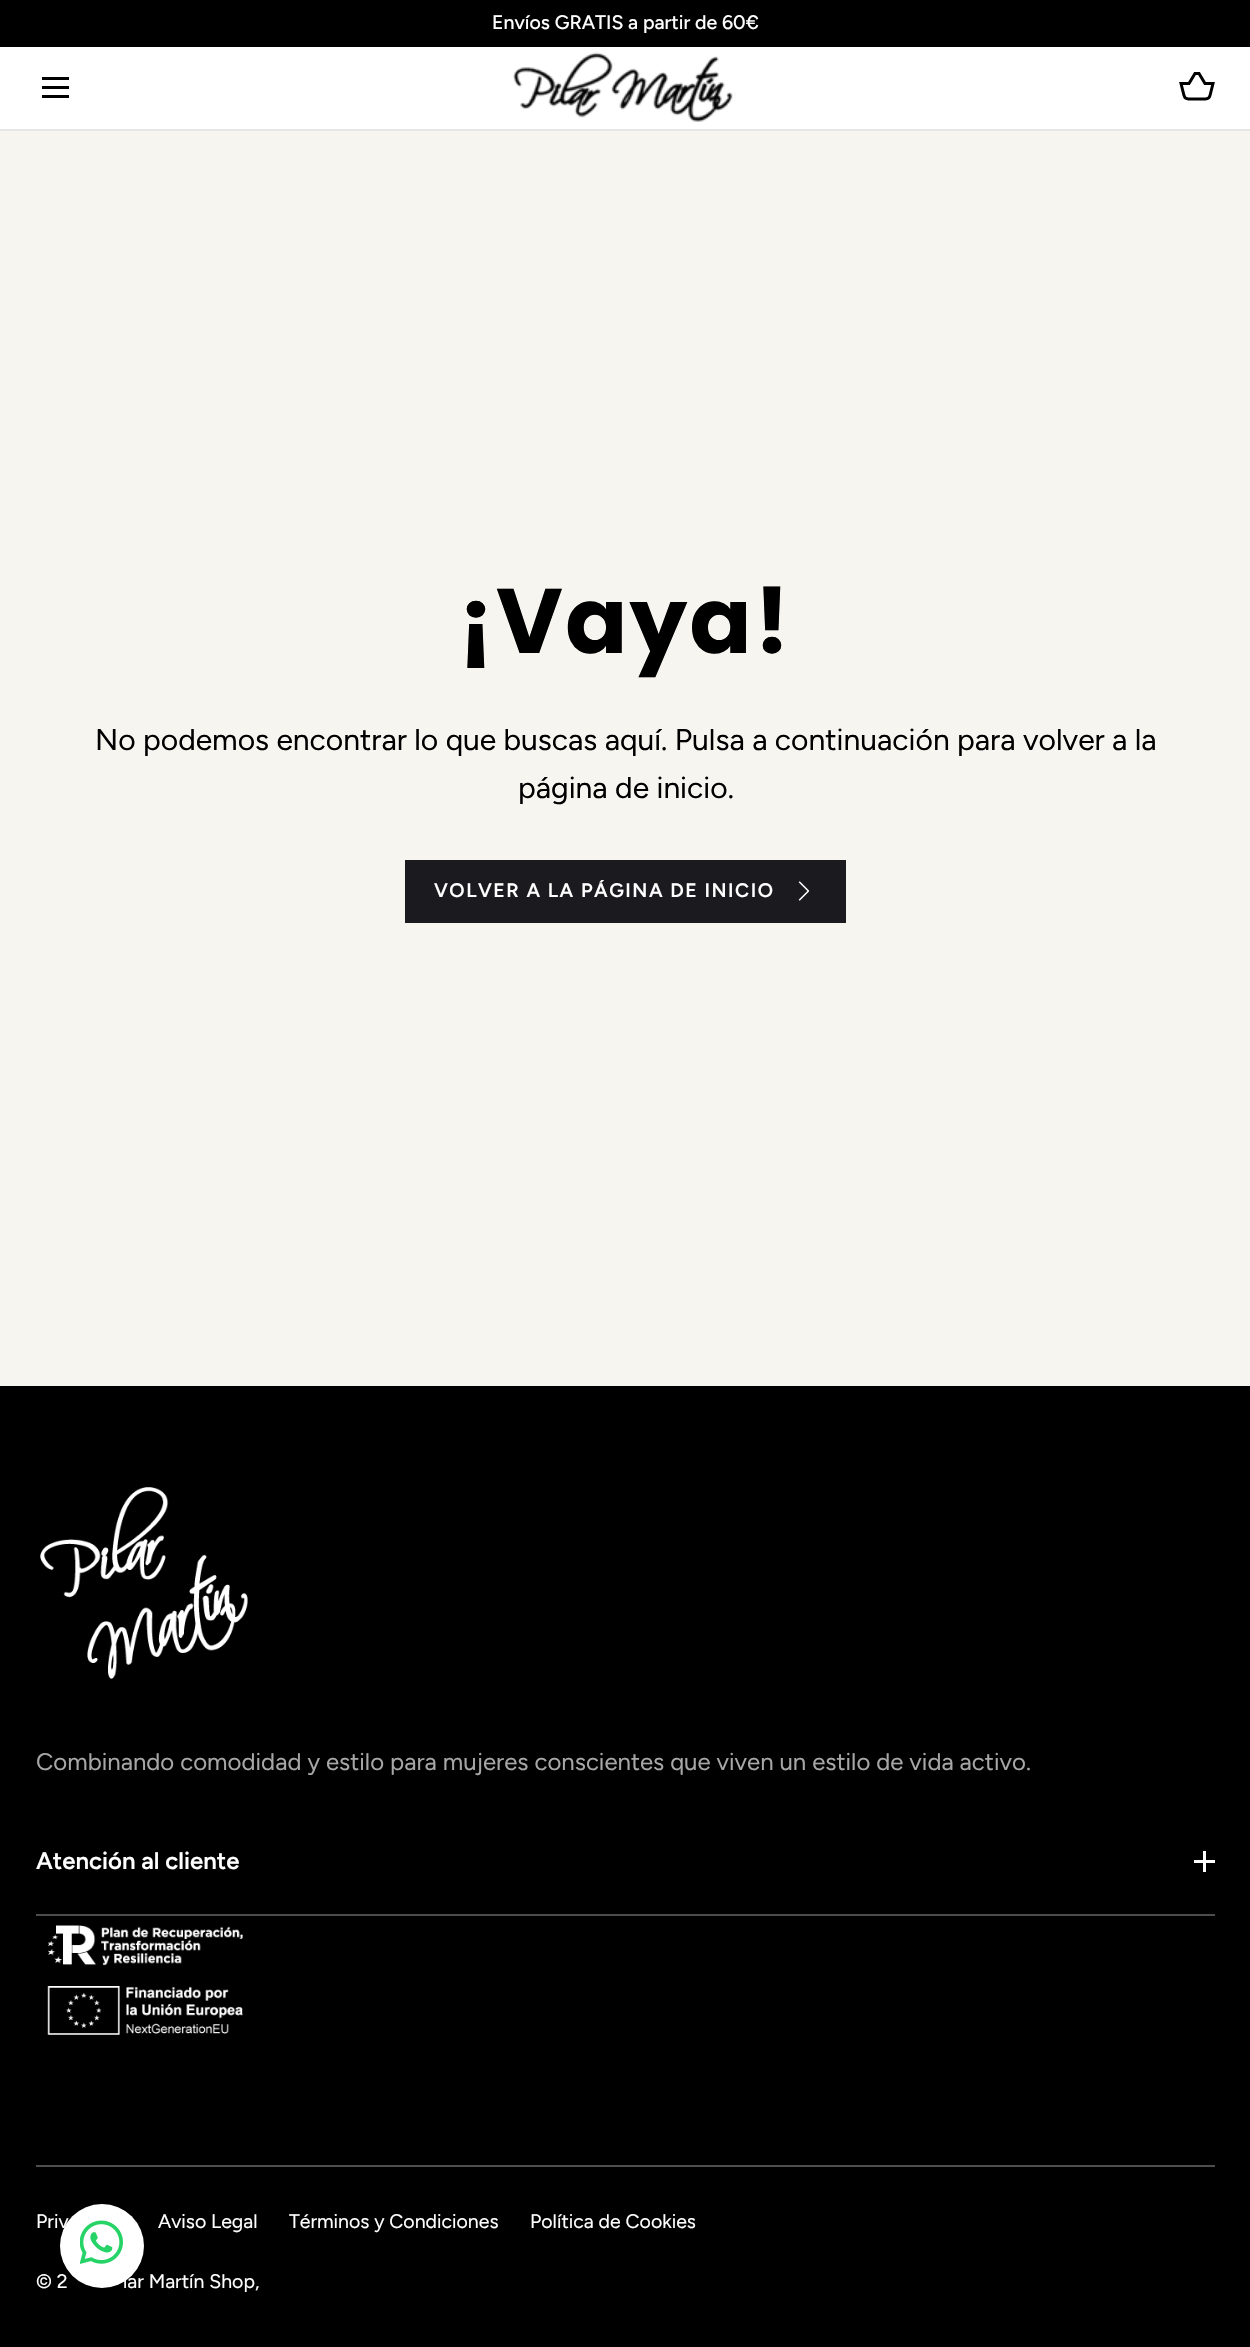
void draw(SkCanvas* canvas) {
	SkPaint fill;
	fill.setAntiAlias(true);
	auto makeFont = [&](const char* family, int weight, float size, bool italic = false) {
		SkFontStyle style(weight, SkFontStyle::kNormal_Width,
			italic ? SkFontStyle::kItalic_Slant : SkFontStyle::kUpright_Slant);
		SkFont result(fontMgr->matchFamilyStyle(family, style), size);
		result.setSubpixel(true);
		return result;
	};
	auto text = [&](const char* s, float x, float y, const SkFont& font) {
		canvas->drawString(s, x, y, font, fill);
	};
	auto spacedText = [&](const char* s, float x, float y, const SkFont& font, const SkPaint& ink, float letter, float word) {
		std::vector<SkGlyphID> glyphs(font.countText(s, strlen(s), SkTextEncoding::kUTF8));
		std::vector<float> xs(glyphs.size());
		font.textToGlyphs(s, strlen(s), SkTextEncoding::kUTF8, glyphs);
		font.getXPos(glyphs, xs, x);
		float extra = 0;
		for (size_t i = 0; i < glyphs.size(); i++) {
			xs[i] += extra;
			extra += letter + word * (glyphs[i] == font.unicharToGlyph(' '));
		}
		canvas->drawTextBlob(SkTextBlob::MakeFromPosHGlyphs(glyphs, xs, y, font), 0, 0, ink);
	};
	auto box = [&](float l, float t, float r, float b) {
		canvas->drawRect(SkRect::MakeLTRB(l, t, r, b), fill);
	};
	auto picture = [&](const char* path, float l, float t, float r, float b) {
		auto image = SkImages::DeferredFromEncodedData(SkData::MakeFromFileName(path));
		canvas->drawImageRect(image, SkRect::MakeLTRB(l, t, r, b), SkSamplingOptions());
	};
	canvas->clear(0xFFF7F5F0);
	fill.setColor(0xFF000000);
	box(0, 0, 1250, 47);
	fill.setColor(0xFFFFFFFF);
	box(0, 47, 1250, 129);
	fill.setColor(0xFFE6E6E6);
	box(0, 129, 1250, 131);
	fill.setColor(0xFF000000);
	box(42, 95, 69, 98);
	box(42, 86, 69, 89);
	box(42, 77, 69, 80);
	picture("image0.png", 513, 52, 736, 122);
	fill.setStyle(SkPaint::kStroke_Style);
	fill.setStrokeWidth(3);
	canvas->drawPath(SkPathBuilder().moveTo(1205, 83.5f).lineTo(1199, 73.5f).lineTo(1195, 73.5f).lineTo(1189, 83.5f).lineTo(1181, 83.5f).lineTo(1184, 95.5f).cubicTo(1184.5f, 97.5f, 1186.5f, 99, 1188.5f, 99).lineTo(1205.5f, 99).cubicTo(1207.5f, 99, 1209.5f, 97.5f, 1210, 95.5f).lineTo(1213, 83.5f).close().detach(), fill);
	fill.setStyle(SkPaint::kFill_Style);
	fill.setColor(0xFF1B1A1F);
	box(405, 860, 846, 923);
	picture("image1.png", 798, 881, 810, 901);
	fill.setColor(0xFF000000);
	box(0, 1386, 1250, 2347);
	picture("image2.png", 40, 1487, 248, 1679);
	picture("image3.png", 1194, 1851, 1215, 1872);
	fill.setColor(0xFF4D4D4D);
	box(36, 1914, 1215, 1916);
	picture("image4.png", 47, 1925, 243, 2035);
	box(36, 2165, 1215, 2167);
	fill.setColor(0x45000000);
	fill.setMaskFilter(SkMaskFilter::MakeBlur(kNormal_SkBlurStyle, 4));
	canvas->drawRoundRect(SkRect::MakeLTRB(63, 2207, 147, 2291), 42, 42, fill);
	fill.setMaskFilter(nullptr);
	fill.setColor(0xFFFFFFFF);
	canvas->drawCircle(102, 2246, 42, fill);
	picture("image5.png", 80, 2220, 123, 2264);
	auto font1 = makeFont("Figtree", 500, 19.5f);
	text("Envíos GRATIS a partir de 60€", 492, 29, font1);
	auto font2 = makeFont("Poppins", 700, 91.5f);
	fill.setColor(0xFF000000);
	spacedText("¡Vaya!", 458, 653, font2, fill, 2.25f, 0);
	auto font3 = makeFont("Figtree", 400, 30);
	text("No podemos encontrar lo que buscas aquí. Pulsa a continuación para volver a la", 95, 750, font3);
	text("página de inicio.", 518, 798, font3);
	auto font4 = makeFont("Figtree", 600, 19.5f);
	fill.setColor(0xFFFFFFFF);
	spacedText("VOLVER A LA PÁGINA DE INICIO", 434, 897, font4, fill, 1.5f, 0);
	auto font5 = makeFont("Figtree", 400, 24);
	fill.setColor(0xFFA7A7A7);
	text("Combinando comodidad y estilo para mujeres conscientes que viven un estilo de vida activo.", 36, 1770, font5);
	auto font6 = makeFont("Figtree", 600, 24);
	fill.setColor(0xFFFFFFFF);
	text("Atención al cliente", 36, 1869, font6);
	auto font7 = makeFont("Figtree", 400, 19.5f);
	text("Priv", 36, 2228, font7);
	text("Aviso Legal", 158, 2228, font7);
	text("Términos y Condiciones", 289, 2228, font7);
	text("Política de Cookies", 530, 2228, font7);
	text("© 2", 36, 2288, font7);
	text("lar Martín Shop,", 123, 2288, font7);
}
